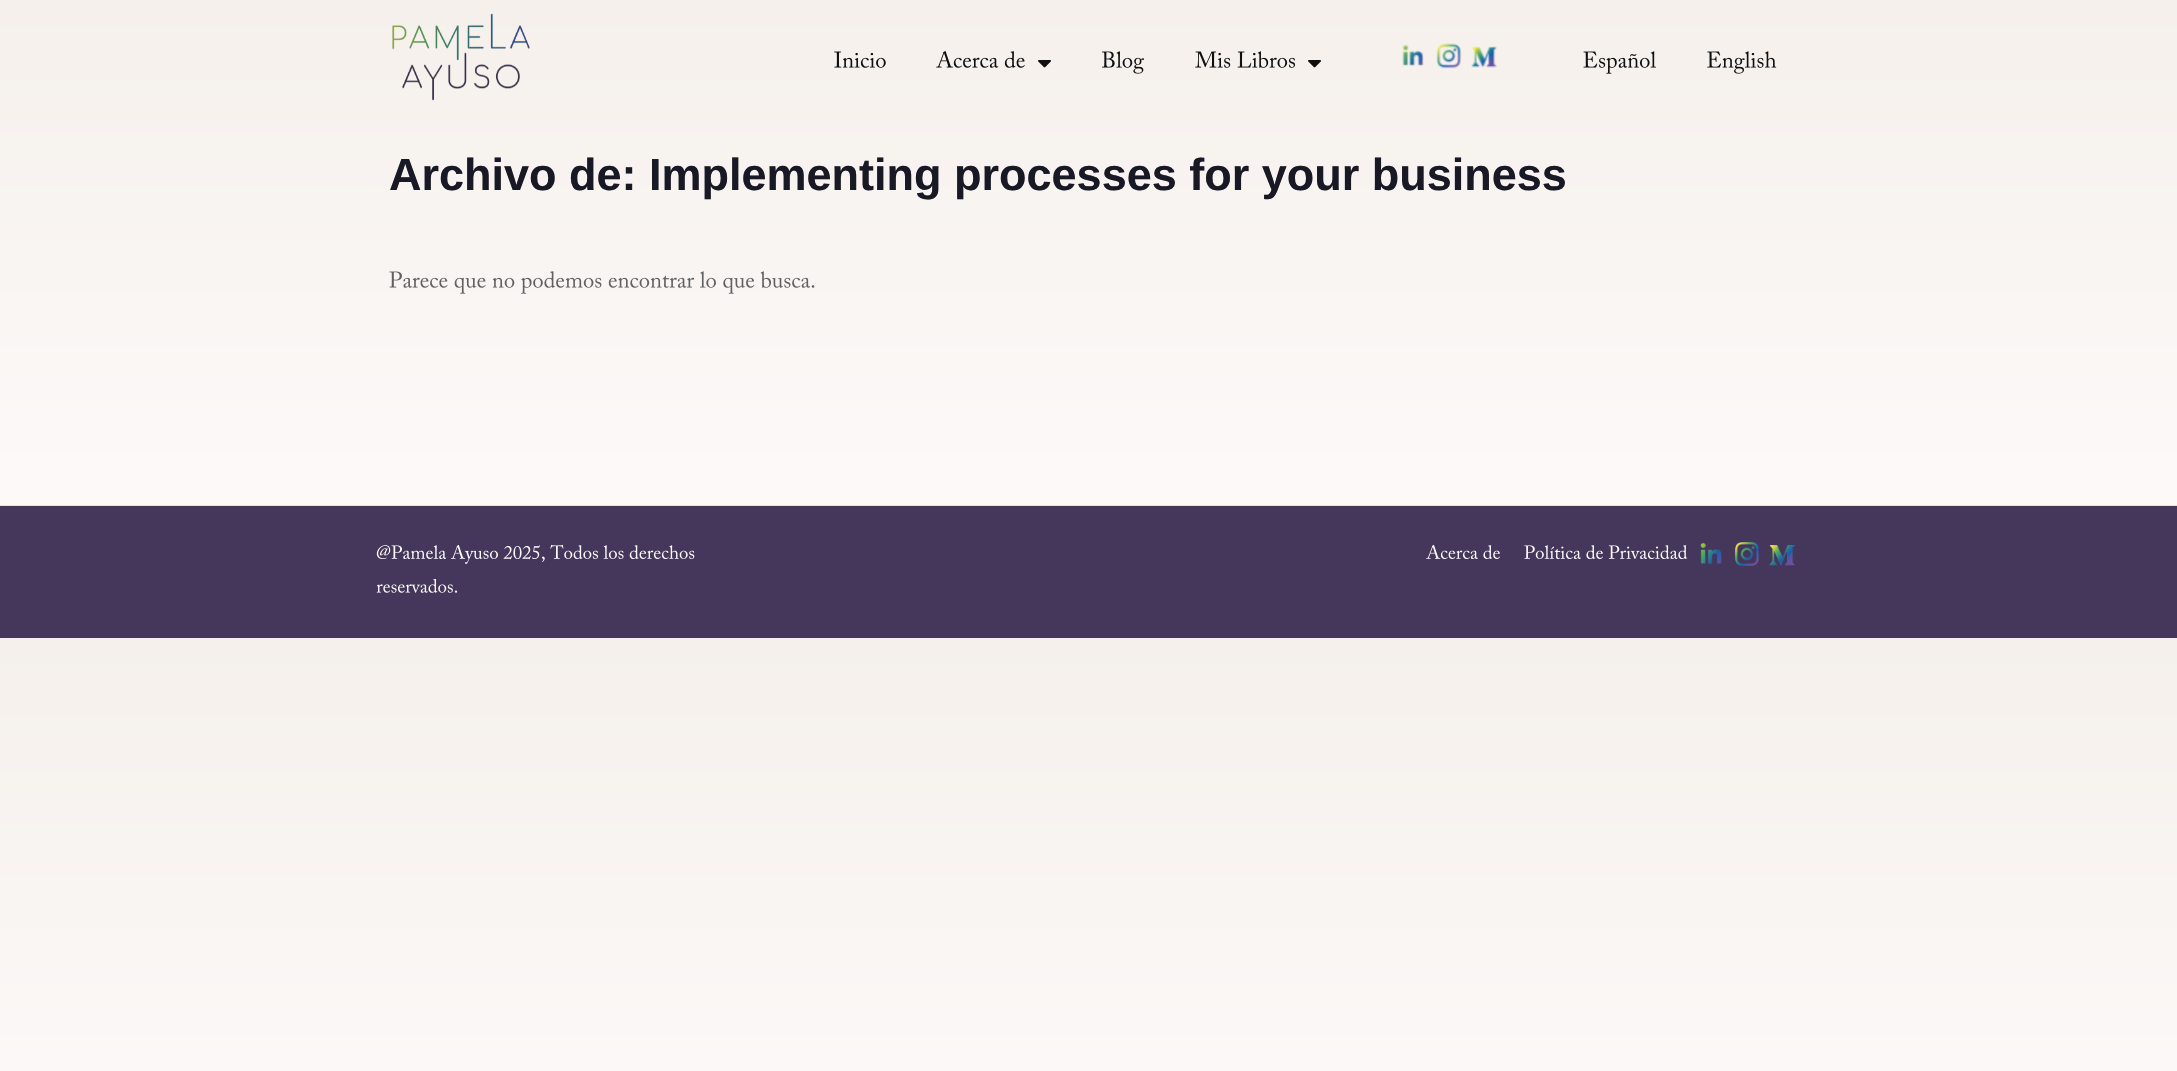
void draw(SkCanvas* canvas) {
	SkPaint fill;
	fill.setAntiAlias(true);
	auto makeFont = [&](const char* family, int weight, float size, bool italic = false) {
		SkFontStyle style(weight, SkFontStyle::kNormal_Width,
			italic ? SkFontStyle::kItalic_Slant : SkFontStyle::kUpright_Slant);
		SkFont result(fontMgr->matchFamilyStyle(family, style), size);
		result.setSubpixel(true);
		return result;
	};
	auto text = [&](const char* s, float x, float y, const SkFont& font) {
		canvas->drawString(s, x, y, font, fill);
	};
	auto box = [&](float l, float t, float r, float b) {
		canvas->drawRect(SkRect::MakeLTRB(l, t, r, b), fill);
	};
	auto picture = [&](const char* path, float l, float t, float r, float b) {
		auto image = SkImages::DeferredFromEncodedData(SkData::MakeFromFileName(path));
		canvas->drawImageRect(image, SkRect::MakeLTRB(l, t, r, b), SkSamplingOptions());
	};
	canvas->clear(0xFFFFFFFF);
	{
		const SkColor colors[] = {0xFFF5F0EB, 0xFFFFFCFD};
		const float stops[] = {0, 1};
		const SkPoint ends[] = {{1089, 0}, {1089, 638}};
		fill.setShader(SkGradientShader::MakeLinear(ends, colors, stops, 2, SkTileMode::kClamp));
		fill.setAlpha(255);
	}
	box(0, 0, 2177, 505);
	{
		const SkColor colors[] = {0xFFF5F0EB, 0xFFFFFCFD};
		const float stops[] = {0, 1};
		const SkPoint ends[] = {{1089, 637}, {1089, 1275}};
		fill.setShader(SkGradientShader::MakeLinear(ends, colors, stops, 2, SkTileMode::kClamp));
		fill.setAlpha(255);
	}
	box(0, 638, 2177, 1071);
	picture("image0.png", 392, 13, 530, 101);
	picture("image1.png", 834, 51, 886, 68);
	picture("image2.png", 936, 50, 1025, 68);
	picture("image3.png", 1038, 60, 1051, 68);
	picture("image4.png", 1102, 51, 1144, 74);
	picture("image5.png", 1195, 51, 1296, 68);
	picture("image3.png", 1308, 60, 1321, 68);
	picture("image6.png", 1402, 44, 1424, 66);
	picture("image7.png", 1436, 43, 1462, 69);
	picture("image8.png", 1471, 46, 1497, 68);
	picture("image9.png", 1583, 51, 1656, 74);
	picture("image10.png", 1707, 51, 1777, 74);
	picture("image11.png", 389, 271, 815, 294);
	fill.setShader(nullptr);
	fill.setColor(0xFFE4E1E0);
	box(0, 505, 2177, 506);
	fill.setColor(0xFF45365B);
	box(0, 506, 2177, 638);
	picture("image12.png", 376, 544, 695, 564);
	picture("image13.png", 376, 579, 458, 593);
	picture("image14.png", 1426, 544, 1500, 559);
	picture("image15.png", 1524, 545, 1688, 559);
	picture("image16.png", 1700, 542, 1722, 564);
	picture("image17.png", 1734, 542, 1759, 566);
	picture("image18.png", 1769, 545, 1795, 566);
	auto font1 = makeFont("Liberation Sans", 700, 45);
	fill.setColor(0xFF191925);
	text("Archivo de: Implementing processes for your business", 389, 190, font1);
}
